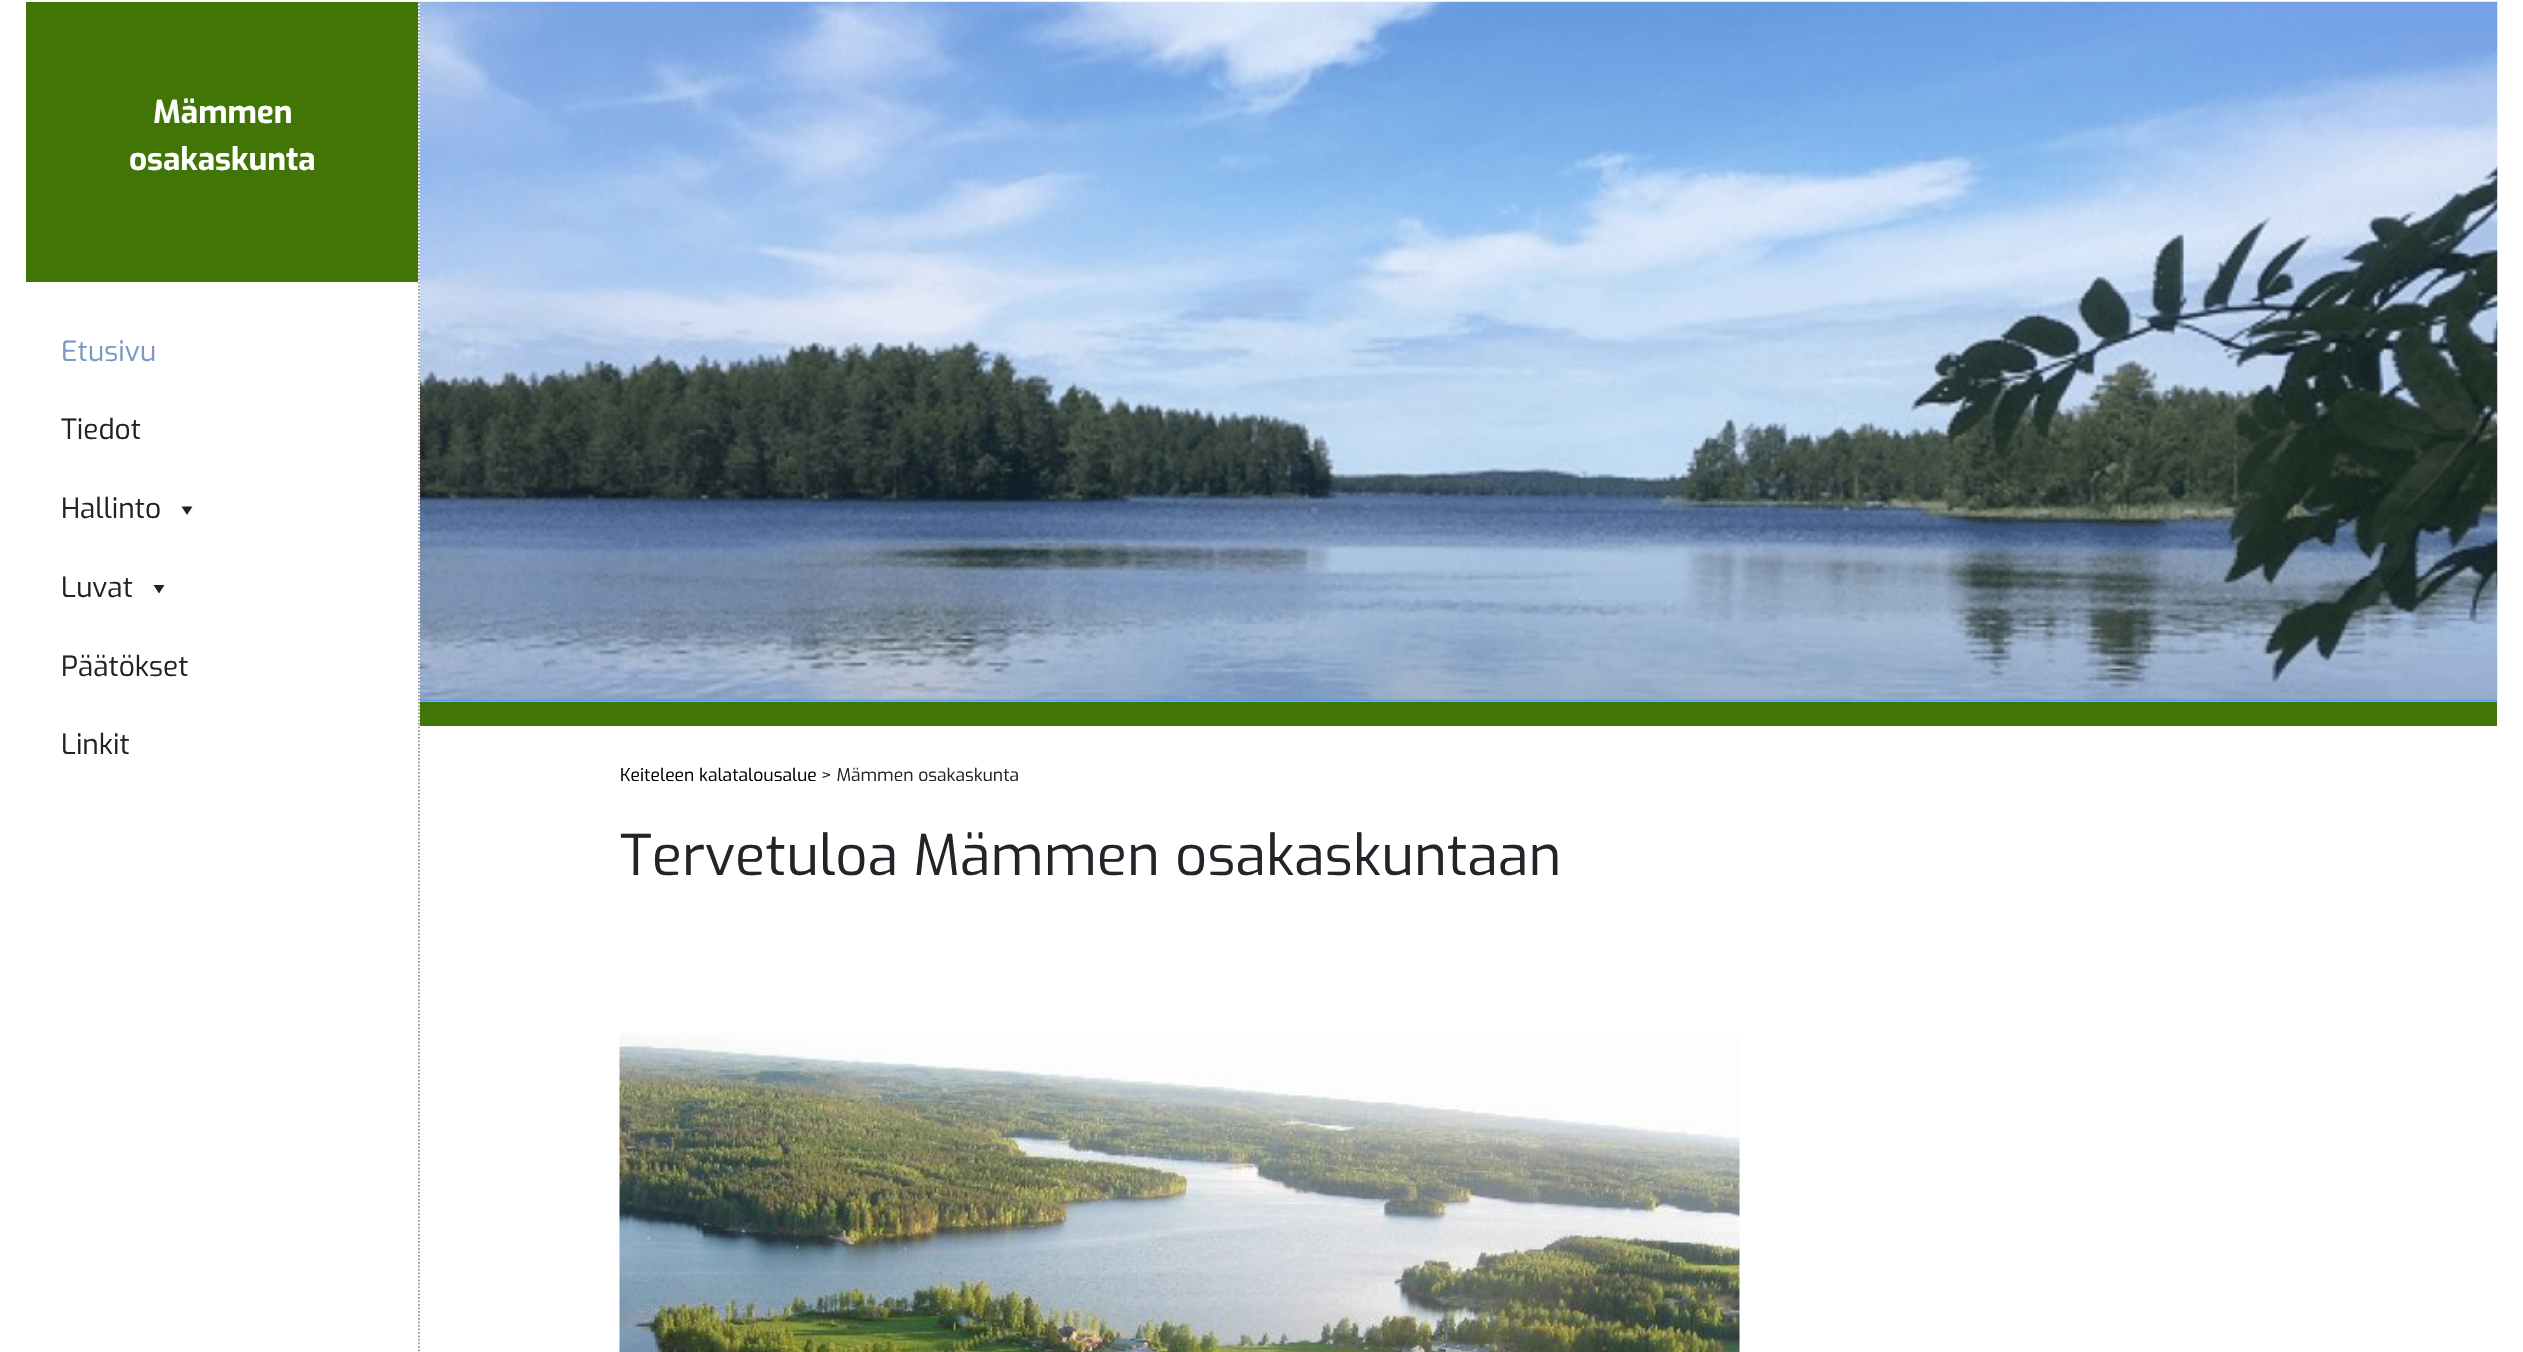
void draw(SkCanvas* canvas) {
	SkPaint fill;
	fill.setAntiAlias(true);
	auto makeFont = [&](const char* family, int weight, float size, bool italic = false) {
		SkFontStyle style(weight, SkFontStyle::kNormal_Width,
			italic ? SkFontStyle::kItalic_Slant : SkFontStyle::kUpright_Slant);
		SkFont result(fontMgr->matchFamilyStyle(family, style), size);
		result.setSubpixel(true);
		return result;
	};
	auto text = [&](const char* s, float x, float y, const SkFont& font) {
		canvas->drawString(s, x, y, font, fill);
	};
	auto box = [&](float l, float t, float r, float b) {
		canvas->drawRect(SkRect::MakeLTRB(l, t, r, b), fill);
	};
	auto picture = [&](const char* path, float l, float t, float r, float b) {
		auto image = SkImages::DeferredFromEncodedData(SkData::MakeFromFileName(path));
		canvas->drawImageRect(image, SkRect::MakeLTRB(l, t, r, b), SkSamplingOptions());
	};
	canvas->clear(0xFFFFFFFF);
	fill.setStyle(SkPaint::kStroke_Style);
	fill.setStrokeWidth(1.8f);
	fill.setColor(0xFF979797);
	fill.setPathEffect(SkDashPathEffect::Make({{1.75f, 1.75f}}, 0));
	canvas->drawPath(SkPathBuilder().moveTo(419, 2).lineTo(419, 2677.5f).detach(), fill);
	fill.setPathEffect(nullptr);
	fill.setStyle(SkPaint::kFill_Style);
	fill.setColor(0xFF417505);
	box(26, 2, 418, 282);
	fill.setColor(0xFF222222);
	canvas->drawPath(SkPathBuilder().moveTo(192.5f, 506.5f).lineTo(187, 515).lineTo(181.5f, 506.5f).close().detach(), fill);
	canvas->drawPath(SkPathBuilder().moveTo(164.5f, 585).lineTo(159, 593.5f).lineTo(153.5f, 585).close().detach(), fill);
	picture("image0.png", 420, 1, 2498, 702);
	fill.setColor(0xFF417505);
	box(420, 702, 2497, 726);
	picture("image1.png", 619, 1033, 1740, 1352);
	auto font1 = makeFont("Exo", 700, 31.5f);
	fill.setColor(0xFFFFFFFF);
	text("Mämmen", 153, 123, font1);
	text("osakaskunta", 129, 170, font1);
	auto font2 = makeFont("Exo", 400, 28);
	fill.setColor(0xFF7899C1);
	text("Etusivu", 61, 361, font2);
	fill.setColor(0xFF222222);
	text("Tiedot", 61, 439, font2);
	text("Hallinto", 61, 518, font2);
	text("Luvat", 61, 597, font2);
	text("Päätökset", 61, 676, font2);
	text("Linkit", 61, 754, font2);
	auto font3 = makeFont("Exo", 400, 17.5f);
	fill.setColor(0xFF000000);
	text("Keiteleen kalatalousalue", 620, 781, font3);
	fill.setColor(0xFF212529);
	text("> Mämmen osakaskunta", 821, 781, font3);
	auto font4 = makeFont("Exo", 400, 56);
	text("Tervetuloa Mämmen osakaskuntaan", 620, 875, font4);
}
